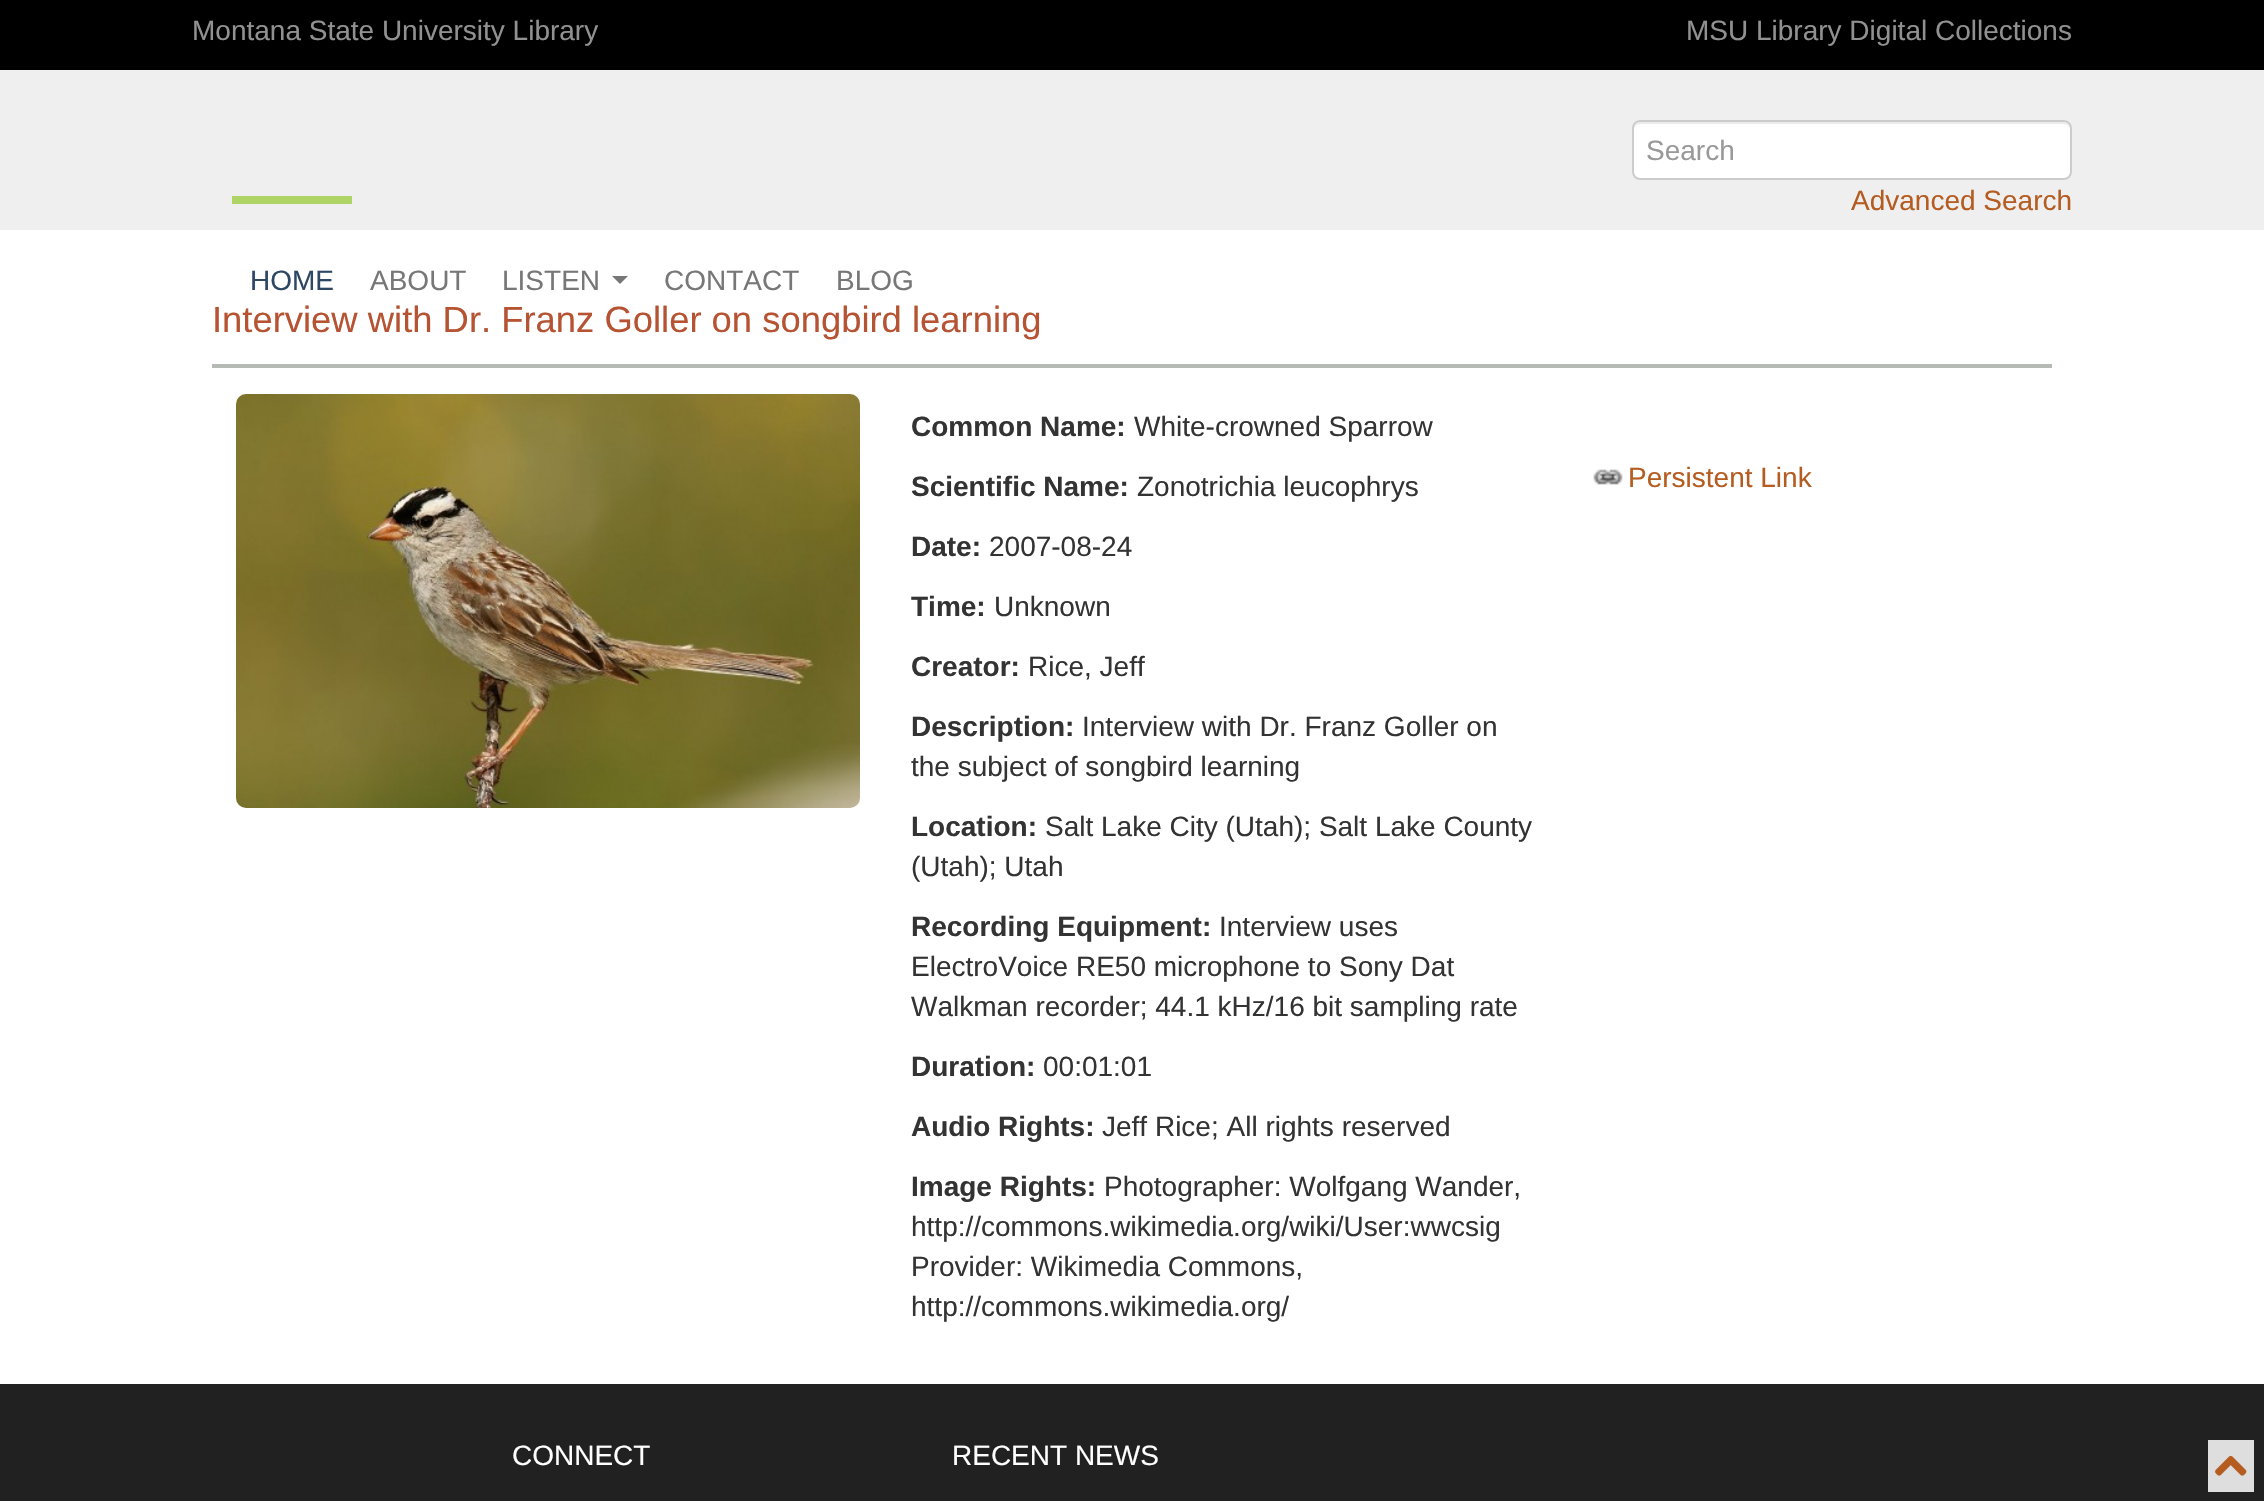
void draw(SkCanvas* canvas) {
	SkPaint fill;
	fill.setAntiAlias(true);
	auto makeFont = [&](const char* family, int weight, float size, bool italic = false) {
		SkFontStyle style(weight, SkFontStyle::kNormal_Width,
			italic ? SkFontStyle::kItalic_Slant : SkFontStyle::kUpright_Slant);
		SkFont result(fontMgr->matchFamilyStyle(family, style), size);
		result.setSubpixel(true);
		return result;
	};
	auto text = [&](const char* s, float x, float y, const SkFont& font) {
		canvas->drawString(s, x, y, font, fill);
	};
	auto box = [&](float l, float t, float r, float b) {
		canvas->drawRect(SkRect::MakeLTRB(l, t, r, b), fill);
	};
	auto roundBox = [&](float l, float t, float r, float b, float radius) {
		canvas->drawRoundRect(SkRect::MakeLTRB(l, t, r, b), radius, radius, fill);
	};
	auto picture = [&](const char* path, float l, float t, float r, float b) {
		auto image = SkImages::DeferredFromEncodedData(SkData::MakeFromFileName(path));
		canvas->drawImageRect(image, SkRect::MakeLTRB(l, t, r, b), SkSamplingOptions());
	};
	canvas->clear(0xFFFFFFFF);
	fill.setColor(0xFF000000);
	box(0, 0, 2264, 70);
	fill.setColor(0xFFEFEFEF);
	box(0, 70, 2264, 230);
	fill.setColor(0xFFFFFFFF);
	roundBox(1632, 120, 2072, 180, 8);
	fill.setColor(0xFFECECEC);
	canvas->drawPath(SkPathBuilder().moveTo(1640, 124).lineTo(2064, 124).cubicTo(2067, 124, 2070, 127, 2070, 130).lineTo(2070, 128).cubicTo(2070, 125, 2067, 122, 2064, 122).lineTo(1640, 122).cubicTo(1637, 122, 1634, 125, 1634, 128).lineTo(1634, 130).cubicTo(1634, 127, 1637, 124, 1640, 124).close().detach(), fill);
	fill.setStyle(SkPaint::kStroke_Style);
	fill.setStrokeWidth(2);
	fill.setColor(0xFFCCCCCC);
	canvas->drawRoundRect(SkRect::MakeLTRB(1633, 121, 2071, 179), 7, 7, fill);
	fill.setStyle(SkPaint::kFill_Style);
	fill.setColor(0xFFAFD466);
	box(232, 196, 352, 204);
	fill.setColor(0xFF777777);
	canvas->drawPath(SkPathBuilder().moveTo(612, 276).lineTo(628, 276).lineTo(620, 284).close().detach(), fill);
	fill.setColor(0xFFB5BAB4);
	box(212, 364, 2052, 368);
	picture("image0.png", 236, 394, 860, 808);
	picture("image1.png", 1593, 469, 1623, 485);
	fill.setColor(0xFF212121);
	box(0, 1384, 2264, 1501);
	fill.setColor(0xFFDEDEDE);
	box(2208, 1440, 2254, 1492);
	picture("image2.png", 2215, 1455, 2247, 1476);
	auto font1 = makeFont("Liberation Sans", 400, 28);
	fill.setColor(0xFF919191);
	text("Montana State University Library", 192, 40, font1);
	text("MSU Library Digital Collections", 1686, 40, font1);
	fill.setColor(0xFF999999);
	text("Search", 1646, 160, font1);
	fill.setColor(0xFFB55C21);
	text("Advanced Search", 1851, 210, font1);
	fill.setColor(0xFF2D4764);
	text("HOME", 250, 290, font1);
	fill.setColor(0xFF777777);
	text("ABOUT", 370, 290, font1);
	text("LISTEN", 502, 290, font1);
	text("CONTACT", 664, 290, font1);
	text("BLOG", 836, 290, font1);
	auto font2 = makeFont("Liberation Sans", 400, 36.4f);
	fill.setColor(0xFFB55332);
	text("Interview with Dr. Franz Goller on songbird learning", 212, 332, font2);
	auto font3 = makeFont("Liberation Sans", 700, 28);
	fill.setColor(0xFF333333);
	text("Common Name:", 911, 436, font3);
	text("White-crowned Sparrow", 1134, 436, font1);
	text("Scientific Name:", 911, 496, font3);
	text("Zonotrichia leucophrys", 1137, 496, font1);
	text("Date:", 911, 556, font3);
	text("2007-08-24", 989, 556, font1);
	text("Time:", 911, 616, font3);
	text("Unknown", 994, 616, font1);
	text("Creator:", 911, 676, font3);
	text("Rice, Jeff", 1028, 676, font1);
	text("Description:", 911, 736, font3);
	text("Interview with Dr. Franz Goller on", 1082, 736, font1);
	text("the subject of songbird learning", 911, 776, font1);
	text("Location:", 911, 836, font3);
	text("Salt Lake City (Utah); Salt Lake County", 1045, 836, font1);
	text("(Utah); Utah", 911, 876, font1);
	text("Recording Equipment:", 911, 936, font3);
	text("Interview uses", 1219, 936, font1);
	text("ElectroVoice RE50 microphone to Sony Dat", 911, 976, font1);
	text("Walkman recorder; 44.1 kHz/16 bit sampling rate", 911, 1016, font1);
	text("Duration:", 911, 1076, font3);
	text("00:01:01", 1043, 1076, font1);
	text("Audio Rights:", 911, 1136, font3);
	text("Jeff Rice; All rights reserved", 1102, 1136, font1);
	text("Image Rights:", 911, 1196, font3);
	text("Photographer: Wolfgang Wander,", 1104, 1196, font1);
	text("http://commons.wikimedia.org/wiki/User:wwcsig", 911, 1236, font1);
	text("Provider: Wikimedia Commons,", 911, 1276, font1);
	text("http://commons.wikimedia.org/", 911, 1316, font1);
	fill.setColor(0xFFB55C21);
	text("Persistent Link", 1628, 487, font1);
	fill.setColor(0xFFFFFFFF);
	text("CONNECT", 512, 1465, font1);
	text("RECENT NEWS", 952, 1465, font1);
}
